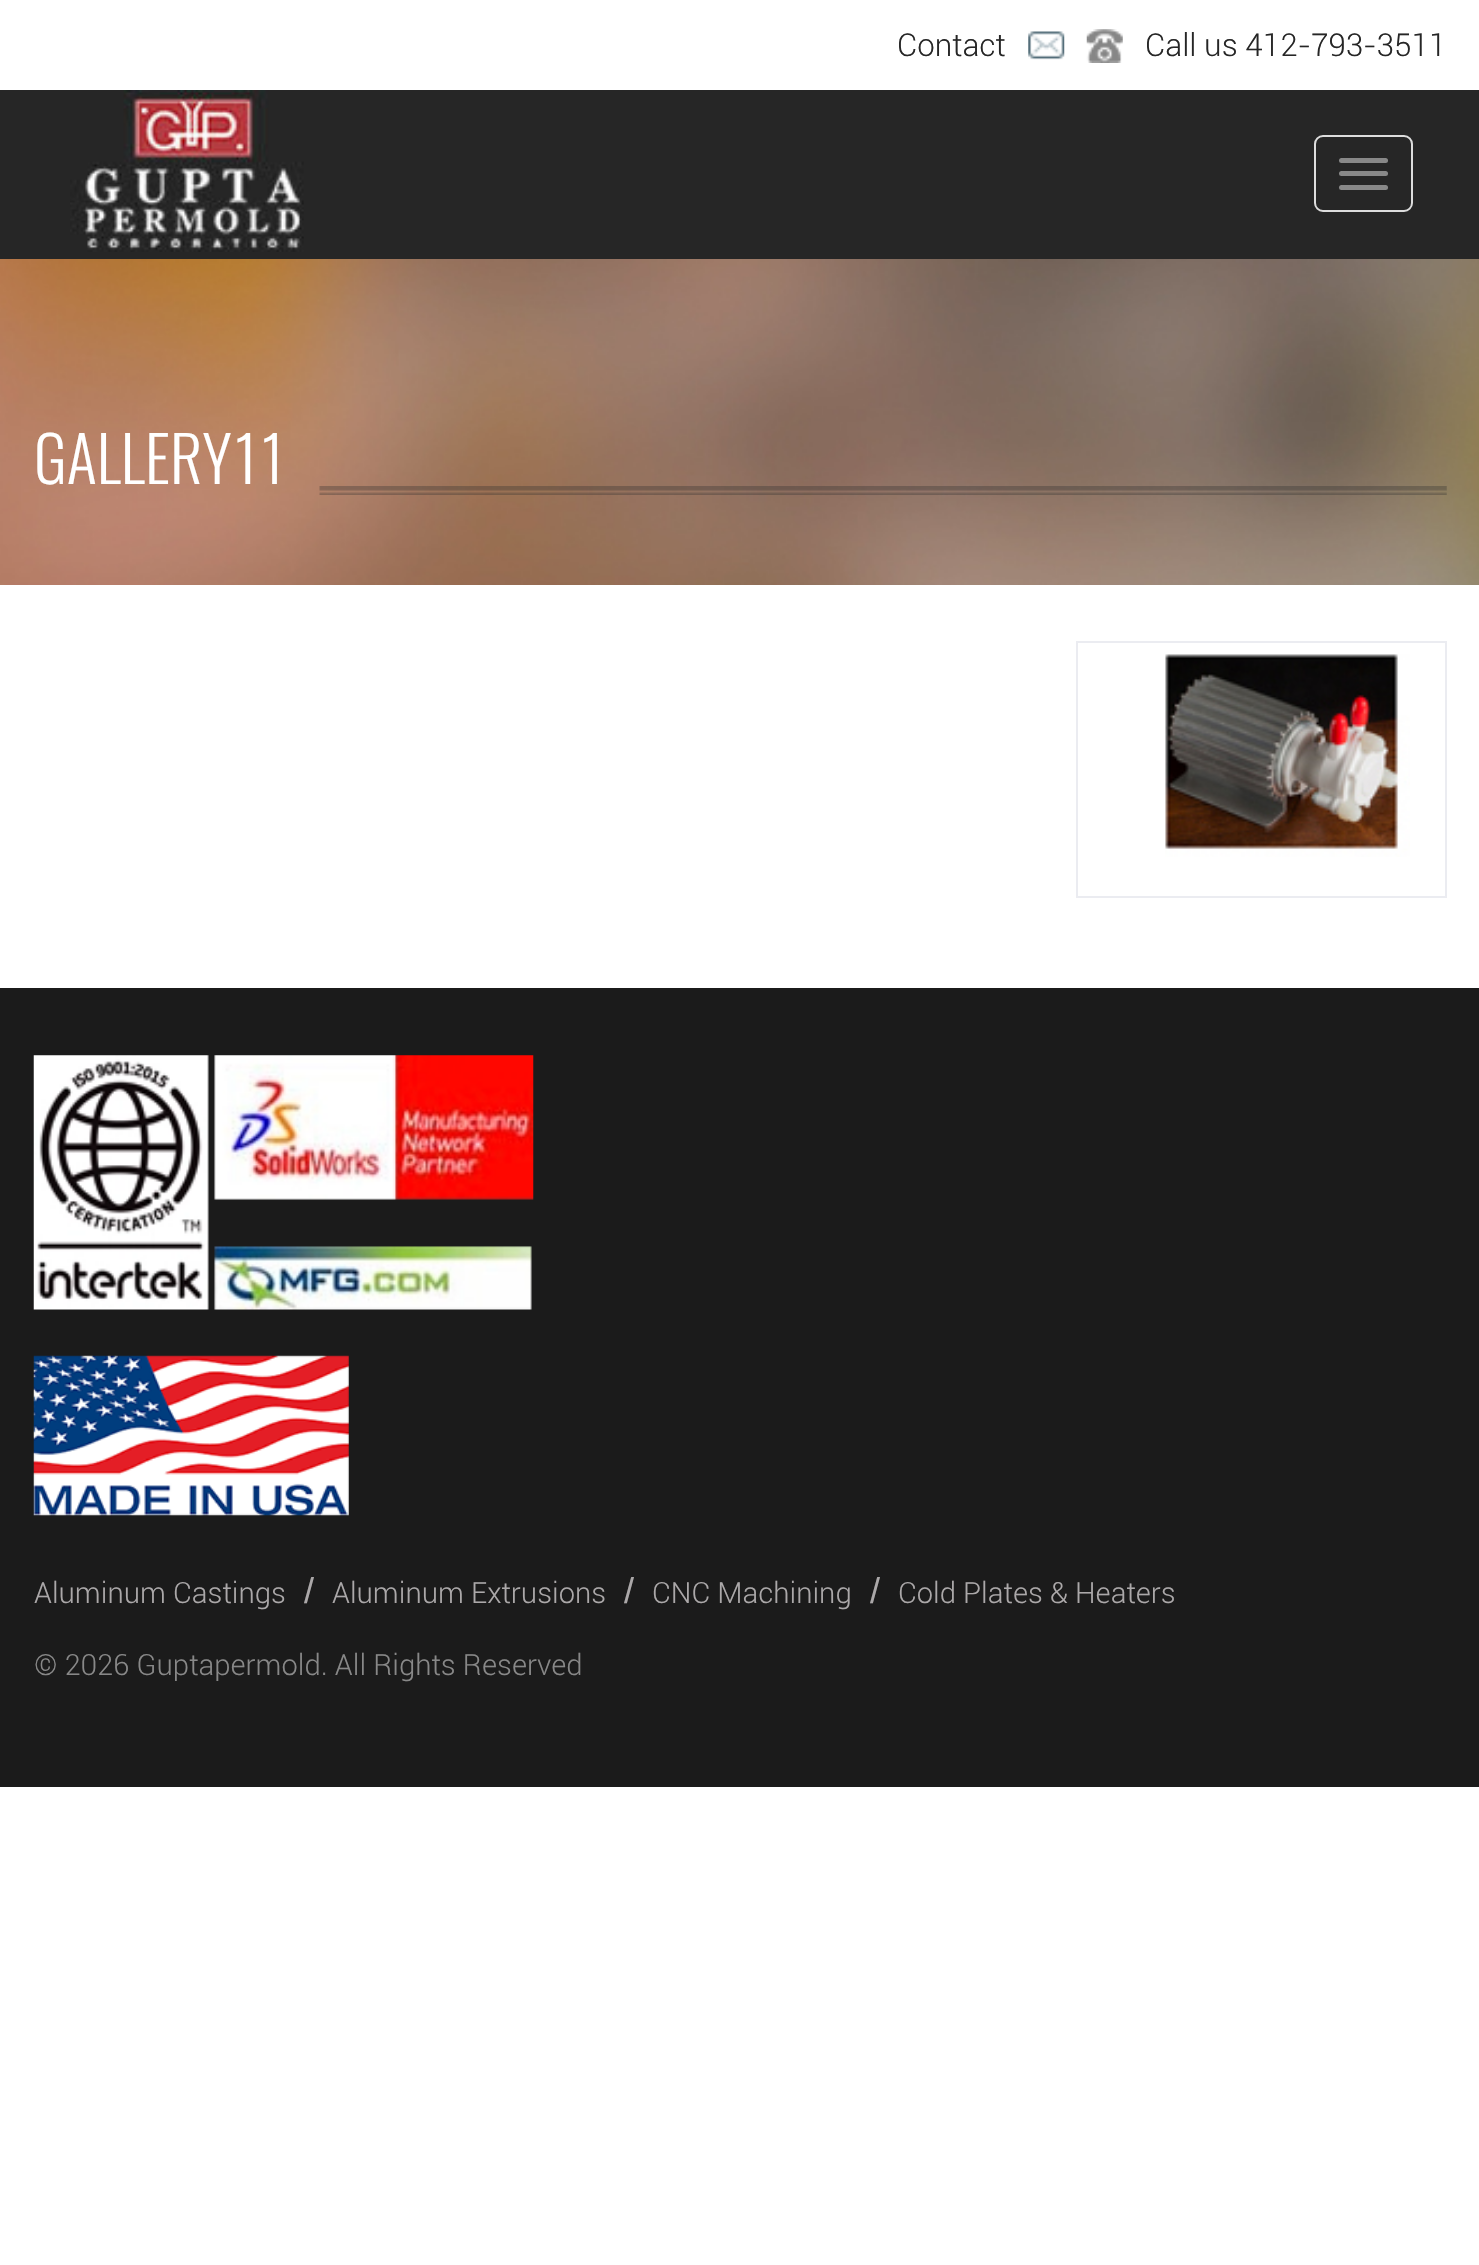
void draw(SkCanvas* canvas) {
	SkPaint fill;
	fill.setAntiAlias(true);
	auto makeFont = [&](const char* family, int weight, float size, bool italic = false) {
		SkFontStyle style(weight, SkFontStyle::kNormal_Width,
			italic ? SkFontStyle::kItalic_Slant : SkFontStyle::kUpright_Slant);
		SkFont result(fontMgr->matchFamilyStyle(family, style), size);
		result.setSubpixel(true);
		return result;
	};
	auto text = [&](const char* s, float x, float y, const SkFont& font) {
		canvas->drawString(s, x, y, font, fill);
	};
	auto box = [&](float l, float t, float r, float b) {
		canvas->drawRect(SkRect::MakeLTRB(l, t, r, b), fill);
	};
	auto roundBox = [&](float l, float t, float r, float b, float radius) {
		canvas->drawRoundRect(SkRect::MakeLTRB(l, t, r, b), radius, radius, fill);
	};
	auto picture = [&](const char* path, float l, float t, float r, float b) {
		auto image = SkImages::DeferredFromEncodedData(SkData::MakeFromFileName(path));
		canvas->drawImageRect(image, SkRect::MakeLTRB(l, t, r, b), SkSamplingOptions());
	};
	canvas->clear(0xFFFFFFFF);
	picture("image0.png", 1028, 31, 1065, 60);
	picture("image1.png", 1086, 29, 1123, 63);
	fill.setColor(0xFF262626);
	box(0, 90, 1479, 259);
	picture("image2.png", 70, 90, 304, 252);
	fill.setStyle(SkPaint::kStroke_Style);
	fill.setStrokeWidth(2);
	fill.setColor(0xFFDDDDDD);
	canvas->drawRoundRect(SkRect::MakeLTRB(1315, 136, 1412, 211), 8, 8, fill);
	fill.setStyle(SkPaint::kFill_Style);
	fill.setColor(0xFF888888);
	roundBox(1339, 158, 1388, 163, 2.5f);
	roundBox(1339, 171, 1388, 176, 2.5f);
	roundBox(1339, 185, 1388, 190, 2.5f);
	picture("image3.png", 0, 259, 1479, 585);
	picture("image4.png", 319, 486, 1447, 495);
	fill.setStyle(SkPaint::kStroke_Style);
	fill.setColor(0xFFEBECF1);
	canvas->drawRect(SkRect::MakeLTRB(1077, 642, 1446, 897), fill);
	picture("image5.png", 1165, 654, 1410, 857);
	fill.setStyle(SkPaint::kFill_Style);
	fill.setColor(0xFF1B1B1B);
	box(0, 988, 1479, 1787);
	picture("image6.png", 33, 1055, 534, 1310);
	picture("image7.png", 33, 1355, 349, 1516);
	auto font1 = makeFont("Roboto", 300, 31.5f);
	fill.setColor(0xFF262626);
	text("Contact", 897, 56, font1);
	text("Call us 412-793-3511", 1145, 56, font1);
	auto font2 = makeFont("Oswald", 300, 63);
	fill.setColor(0xFFFFFFFF);
	text("GALLERY11", 34, 484, font2);
	auto font3 = makeFont("Roboto", 300, 29.25f);
	fill.setColor(0xFFABA8A9);
	text("Aluminum Castings", 34, 1603, font3);
	auto font4 = makeFont("Liberation Sans", 400, 36);
	text("/", 304, 1603, font4);
	text("Aluminum Extrusions", 332, 1603, font3);
	text("/", 624, 1603, font4);
	text("CNC Machining", 652, 1603, font3);
	text("/", 870, 1603, font4);
	text("Cold Plates & Heaters", 898, 1603, font3);
	fill.setColor(0xFF888888);
	text("© 2026 Guptapermold. All Rights Reserved", 34, 1675, font3);
}
